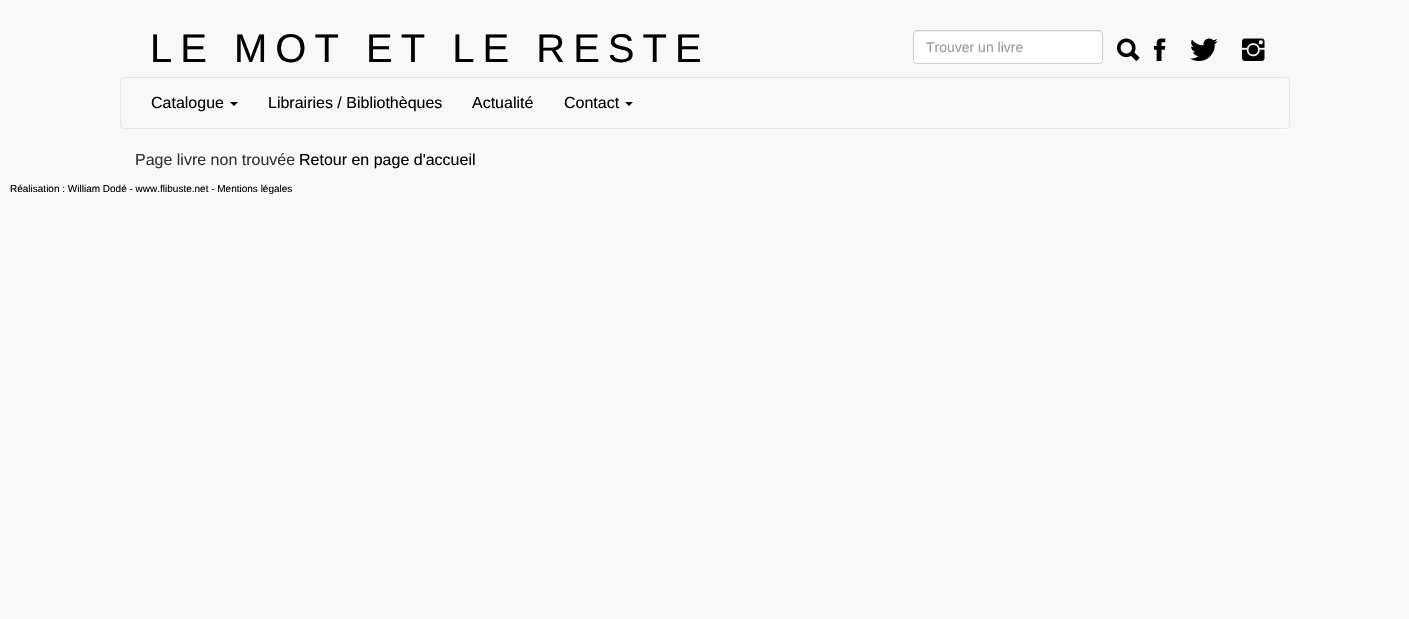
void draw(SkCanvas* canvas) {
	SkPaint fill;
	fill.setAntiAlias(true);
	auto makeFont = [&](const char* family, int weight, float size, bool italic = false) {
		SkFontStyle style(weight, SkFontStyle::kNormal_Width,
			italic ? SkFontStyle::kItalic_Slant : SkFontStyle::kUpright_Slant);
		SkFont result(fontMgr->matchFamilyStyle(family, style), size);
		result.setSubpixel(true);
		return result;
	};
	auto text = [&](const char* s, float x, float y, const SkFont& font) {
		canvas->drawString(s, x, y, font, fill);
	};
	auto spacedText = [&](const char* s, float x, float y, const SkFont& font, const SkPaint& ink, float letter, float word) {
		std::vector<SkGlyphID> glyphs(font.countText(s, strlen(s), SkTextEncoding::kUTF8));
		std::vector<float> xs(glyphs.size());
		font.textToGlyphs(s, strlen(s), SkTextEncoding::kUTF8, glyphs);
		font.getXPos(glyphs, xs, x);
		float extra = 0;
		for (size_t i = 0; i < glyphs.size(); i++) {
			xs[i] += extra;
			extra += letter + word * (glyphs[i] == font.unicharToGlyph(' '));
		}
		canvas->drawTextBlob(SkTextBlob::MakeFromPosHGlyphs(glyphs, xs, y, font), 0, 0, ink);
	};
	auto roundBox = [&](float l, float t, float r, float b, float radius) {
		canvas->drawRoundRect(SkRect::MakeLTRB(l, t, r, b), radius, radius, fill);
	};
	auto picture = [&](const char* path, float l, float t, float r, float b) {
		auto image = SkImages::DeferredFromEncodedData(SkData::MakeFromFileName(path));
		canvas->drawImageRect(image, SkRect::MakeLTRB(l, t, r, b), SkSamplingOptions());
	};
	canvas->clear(0xFFF8F8F8);
	fill.setColor(0xFFFFFFFF);
	roundBox(913, 30, 1103, 64, 4);
	fill.setColor(0xFFECECEC);
	canvas->drawPath(SkPathBuilder().moveTo(917, 32).lineTo(1099, 32).cubicTo(1101, 32, 1102, 33, 1102, 35).cubicTo(1102, 33, 1101, 31, 1099, 31).lineTo(917, 31).cubicTo(915, 31, 914, 33, 914, 35).cubicTo(914, 33, 915, 32, 917, 32).close().detach(), fill);
	fill.setStyle(SkPaint::kStroke_Style);
	fill.setStrokeWidth(1);
	fill.setColor(0xFFCCCCCC);
	canvas->drawRoundRect(SkRect::MakeLTRB(913.5f, 30.5f, 1102.5f, 63.5f), 3.5f, 3.5f, fill);
	picture("image0.png", 1117, 38, 1140, 61);
	picture("image1.png", 1154, 38, 1166, 61);
	picture("image2.png", 1190, 38, 1218, 61);
	picture("image3.png", 1242, 38, 1265, 61);
	fill.setColor(0xFFE7E7E7);
	canvas->drawRoundRect(SkRect::MakeLTRB(120.5f, 77.5f, 1289.5f, 128.5f), 3.5f, 3.5f, fill);
	fill.setStyle(SkPaint::kFill_Style);
	fill.setColor(0xFF000000);
	canvas->drawPath(SkPathBuilder().moveTo(230, 102).lineTo(238, 102).lineTo(234, 106).close().detach(), fill);
	canvas->drawPath(SkPathBuilder().moveTo(625, 102).lineTo(633, 102).lineTo(629, 106).close().detach(), fill);
	auto font1 = makeFont("Liberation Sans", 400, 40);
	spacedText("LE MOT ET LE RESTE", 150, 62, font1, fill, 8, 0);
	auto font2 = makeFont("Liberation Sans", 400, 14);
	fill.setColor(0xFF999999);
	text("Trouver un livre", 926, 52, font2);
	auto font3 = makeFont("Liberation Sans", 400, 16);
	fill.setColor(0xFF000000);
	text("Catalogue", 151, 108, font3);
	text("Librairies / Bibliothèques", 268, 108, font3);
	text("Actualité", 472, 108, font3);
	text("Contact", 564, 108, font3);
	fill.setColor(0xFF333333);
	text("Page livre non trouvée", 135, 165, font3);
	fill.setColor(0xFF000000);
	text("Retour en page d'accueil", 299, 165, font3);
	auto font4 = makeFont("Liberation Sans", 400, 10);
	text("Réalisation : William Dodé - www.flibuste.net - Mentions légales", 10, 192, font4);
}
